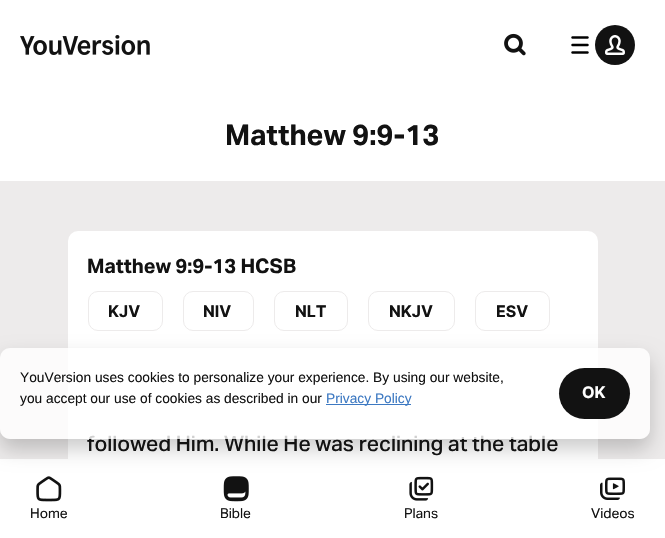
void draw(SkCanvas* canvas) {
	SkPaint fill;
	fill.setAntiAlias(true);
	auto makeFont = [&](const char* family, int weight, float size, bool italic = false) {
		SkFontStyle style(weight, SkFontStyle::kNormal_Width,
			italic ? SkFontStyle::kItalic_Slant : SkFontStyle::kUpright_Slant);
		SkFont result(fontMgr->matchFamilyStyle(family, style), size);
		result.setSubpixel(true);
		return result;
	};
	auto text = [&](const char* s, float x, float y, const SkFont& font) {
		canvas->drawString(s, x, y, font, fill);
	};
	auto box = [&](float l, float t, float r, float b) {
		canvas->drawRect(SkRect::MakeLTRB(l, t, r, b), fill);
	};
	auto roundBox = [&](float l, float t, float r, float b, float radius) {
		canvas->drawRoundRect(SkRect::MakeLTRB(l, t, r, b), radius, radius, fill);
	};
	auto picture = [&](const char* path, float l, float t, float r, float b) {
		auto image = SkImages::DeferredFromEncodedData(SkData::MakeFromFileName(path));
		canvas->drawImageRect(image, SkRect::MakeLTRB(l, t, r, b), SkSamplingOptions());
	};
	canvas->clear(0xFFFFFFFF);
	picture("image0.png", 20, 35, 150, 55);
	picture("image1.png", 504, 33, 526, 56);
	picture("image2.png", 571, 36, 589, 54);
	fill.setColor(0xFF121212);
	canvas->drawCircle(615, 45, 20, fill);
	picture("image3.png", 605, 35, 625, 55);
	fill.setColor(0xFFEDEBEB);
	box(0, 181, 665, 459);
	fill.setColor(0xFFFFFFFF);
	roundBox(68, 231, 598, 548, 10);
	fill.setStyle(SkPaint::kStroke_Style);
	fill.setStrokeWidth(1);
	fill.setColor(0xFFEDEBEB);
	canvas->drawRoundRect(SkRect::MakeLTRB(88.5f, 291.5f, 162.5f, 330.5f), 9.5f, 9.5f, fill);
	canvas->drawRoundRect(SkRect::MakeLTRB(183.5f, 291.5f, 253.5f, 330.5f), 9.5f, 9.5f, fill);
	canvas->drawRoundRect(SkRect::MakeLTRB(274.5f, 291.5f, 347.5f, 330.5f), 9.5f, 9.5f, fill);
	canvas->drawRoundRect(SkRect::MakeLTRB(368.5f, 291.5f, 454.5f, 330.5f), 9.5f, 9.5f, fill);
	canvas->drawRoundRect(SkRect::MakeLTRB(475.5f, 291.5f, 549.5f, 330.5f), 9.5f, 9.5f, fill);
	picture("image4.png", 36, 476, 62, 502);
	picture("image5.png", 223, 476, 249, 502);
	picture("image6.png", 409, 476, 434, 501);
	picture("image7.png", 600, 477, 625, 500);
	canvas->save();
	canvas->clipPath(SkPathBuilder(SkPathFillType::kEvenOdd).moveTo(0, 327).lineTo(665, 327).lineTo(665, 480).lineTo(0, 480).close().moveTo(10, 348).lineTo(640, 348).cubicTo(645.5f, 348, 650, 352.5f, 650, 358).lineTo(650, 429).cubicTo(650, 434.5f, 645.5f, 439, 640, 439).lineTo(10, 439).cubicTo(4.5f, 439, 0, 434.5f, 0, 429).lineTo(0, 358).cubicTo(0, 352.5f, 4.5f, 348, 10, 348).close().detach(), true);
	fill.setStyle(SkPaint::kFill_Style);
	fill.setColor(0x33000000);
	fill.setMaskFilter(SkMaskFilter::MakeBlur(kNormal_SkBlurStyle, 10));
	canvas->drawRoundRect(SkRect::MakeLTRB(0, 358, 650, 449), 10, 10, fill);
	fill.setMaskFilter(nullptr);
	canvas->restore();
	auto font1 = makeFont("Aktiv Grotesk", 700, 28.75f);
	fill.setColor(0xFF121212);
	text("Matthew 9:9-13", 225, 145, font1);
	auto font2 = makeFont("Aktiv Grotesk", 700, 20);
	text("Matthew 9:9-13 HCSB", 87, 273, font2);
	auto font3 = makeFont("Inter", 700, 16);
	text("KJV", 108, 317, font3);
	text("NIV", 203, 317, font3);
	text("NLT", 295, 317, font3);
	text("NKJV", 389, 317, font3);
	text("ESV", 496, 317, font3);
	auto font4 = makeFont("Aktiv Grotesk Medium", 500, 21.25f);
	text("followed Him. While He was reclining at the table", 87, 451, font4);
	fill.setColor(0xCCFFFFFF);
	roundBox(0, 348, 650, 439, 10);
	auto font5 = makeFont("Liberation Sans", 400, 13.75f);
	fill.setColor(0xFF121212);
	text("YouVersion uses cookies to personalize your experience. By using our website,", 20, 382, font5);
	text("you accept our use of cookies as described in our", 20, 403, font5);
	fill.setColor(0xFF3D79C2);
	box(326, 404, 411, 405);
	text("Privacy Policy", 326, 403, font5);
	fill.setColor(0xFF121212);
	roundBox(559, 368, 630, 419, 25.5f);
	fill.setColor(0xFFFFFFFF);
	text("OK", 582, 398, font3);
	auto font6 = makeFont("Aktiv Grotesk", 400, 13.75f);
	fill.setColor(0xFF121212);
	text("Home", 30, 518, font6);
	text("Bible", 220, 518, font6);
	text("Plans", 404, 518, font6);
	text("Videos", 591, 518, font6);
}
